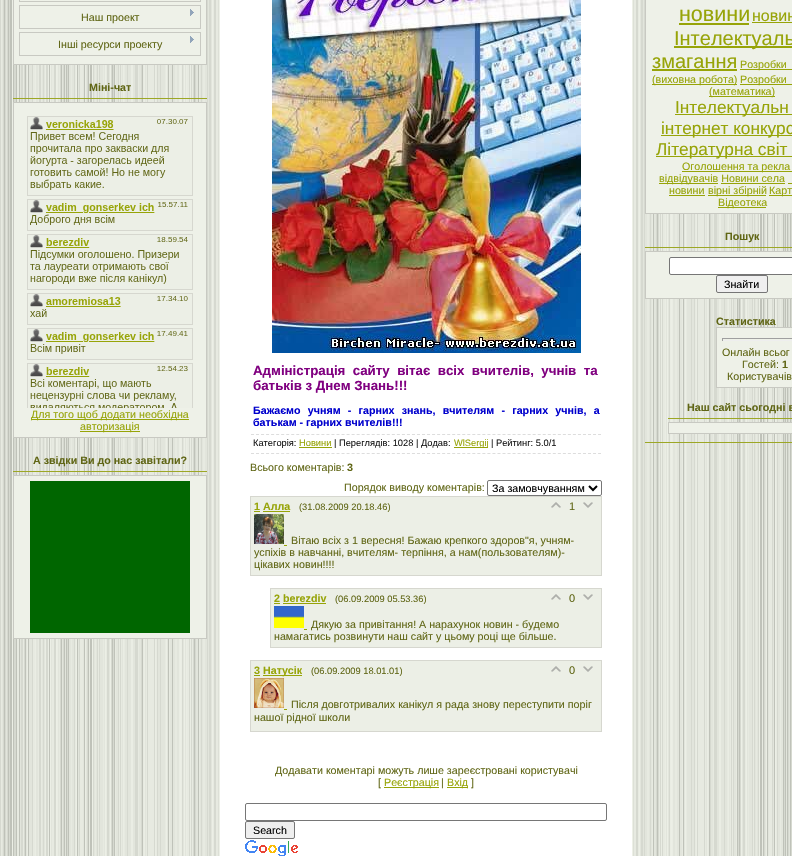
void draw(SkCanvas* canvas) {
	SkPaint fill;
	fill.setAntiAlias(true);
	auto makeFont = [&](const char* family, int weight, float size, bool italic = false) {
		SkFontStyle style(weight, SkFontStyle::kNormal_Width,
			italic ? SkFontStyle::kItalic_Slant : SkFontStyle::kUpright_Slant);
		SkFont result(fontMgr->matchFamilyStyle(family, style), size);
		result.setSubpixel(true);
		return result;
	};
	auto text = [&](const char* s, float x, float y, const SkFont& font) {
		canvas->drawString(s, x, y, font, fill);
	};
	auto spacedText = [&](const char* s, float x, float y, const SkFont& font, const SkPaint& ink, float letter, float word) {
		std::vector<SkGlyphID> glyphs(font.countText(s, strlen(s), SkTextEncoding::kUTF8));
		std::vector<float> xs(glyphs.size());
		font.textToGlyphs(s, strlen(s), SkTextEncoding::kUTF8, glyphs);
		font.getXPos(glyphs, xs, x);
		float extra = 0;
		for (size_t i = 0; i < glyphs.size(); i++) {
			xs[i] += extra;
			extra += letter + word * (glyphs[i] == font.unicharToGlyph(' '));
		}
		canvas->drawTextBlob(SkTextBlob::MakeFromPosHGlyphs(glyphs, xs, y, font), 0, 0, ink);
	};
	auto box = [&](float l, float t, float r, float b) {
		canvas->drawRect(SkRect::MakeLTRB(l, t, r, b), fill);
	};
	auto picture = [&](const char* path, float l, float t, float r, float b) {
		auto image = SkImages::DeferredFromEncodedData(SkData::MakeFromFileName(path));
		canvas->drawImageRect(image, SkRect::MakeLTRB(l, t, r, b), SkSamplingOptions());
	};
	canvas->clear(0xFFFFFFFF);
	picture("image0.png", 0, 0, 220, 856);
	fill.setColor(0xFFEEF1E8);
	canvas->drawRect(SkRect::MakeLTRB(13.5f, -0.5f, 206.5f, 64.5f), fill);
	fill.setStyle(SkPaint::kStroke_Style);
	fill.setStrokeWidth(1);
	fill.setColor(0xFFC8C9C2);
	canvas->drawRect(SkRect::MakeLTRB(13.5f, -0.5f, 206.5f, 64.5f), fill);
	canvas->drawRect(SkRect::MakeLTRB(19.5f, -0.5f, 200.5f, 1.5f), fill);
	canvas->drawRect(SkRect::MakeLTRB(19.5f, 5.5f, 200.5f, 28.5f), fill);
	picture("image1.png", 190, 9, 194, 16);
	canvas->drawRect(SkRect::MakeLTRB(19.5f, 32.5f, 200.5f, 55.5f), fill);
	picture("image1.png", 190, 36, 194, 43);
	fill.setStyle(SkPaint::kFill_Style);
	fill.setColor(0xFF9CA725);
	box(13, 98, 207, 99);
	fill.setColor(0xFFEEF1E8);
	canvas->drawRect(SkRect::MakeLTRB(13.5f, 102.5f, 206.5f, 437.5f), fill);
	fill.setStyle(SkPaint::kStroke_Style);
	fill.setColor(0xFFC8C9C2);
	canvas->drawRect(SkRect::MakeLTRB(13.5f, 102.5f, 206.5f, 437.5f), fill);
	picture("image2.png", 27, 116, 193, 408);
	fill.setStyle(SkPaint::kFill_Style);
	fill.setColor(0xFF97A408);
	box(31, 419, 189, 420);
	box(80, 431, 140, 432);
	fill.setColor(0xFF9CA725);
	box(13, 471, 207, 472);
	fill.setColor(0xFFEEF1E8);
	canvas->drawRect(SkRect::MakeLTRB(13.5f, 475.5f, 206.5f, 638.5f), fill);
	fill.setStyle(SkPaint::kStroke_Style);
	fill.setColor(0xFFC8C9C2);
	canvas->drawRect(SkRect::MakeLTRB(13.5f, 475.5f, 206.5f, 638.5f), fill);
	fill.setStyle(SkPaint::kFill_Style);
	fill.setColor(0xFF006600);
	box(30, 481, 190, 633);
	picture("image3.png", 632, 0, 792, 856);
	fill.setColor(0xFFEEF1E8);
	canvas->drawRect(SkRect::MakeLTRB(645.5f, -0.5f, 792.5f, 213.5f), fill);
	fill.setStyle(SkPaint::kStroke_Style);
	fill.setColor(0xFFC8C9C2);
	canvas->drawRect(SkRect::MakeLTRB(645.5f, -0.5f, 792.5f, 213.5f), fill);
	fill.setStyle(SkPaint::kFill_Style);
	fill.setColor(0xFF97A408);
	box(679, 23, 749, 25);
	box(752, 22, 792, 23);
	box(674, 46, 792, 48);
	box(652, 69, 737, 71);
	box(740, 69, 792, 70);
	box(652, 84, 737, 85);
	box(740, 84, 792, 85);
	box(709, 96, 775, 97);
	box(675, 114, 792, 115);
	box(661, 135, 792, 136);
	box(656, 156, 792, 157);
	box(682, 171, 792, 172);
	box(659, 183, 718, 184);
	box(721, 183, 785, 184);
	box(788, 183, 792, 184);
	box(669, 195, 705, 196);
	box(708, 195, 766, 196);
	box(769, 195, 792, 196);
	box(718, 207, 766, 208);
	fill.setColor(0xFF9CA725);
	box(645, 247, 792, 248);
	fill.setColor(0xFFEEF1E8);
	canvas->drawRect(SkRect::MakeLTRB(645.5f, 251.5f, 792.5f, 298.5f), fill);
	fill.setStyle(SkPaint::kStroke_Style);
	fill.setColor(0xFFC8C9C2);
	canvas->drawRect(SkRect::MakeLTRB(645.5f, 251.5f, 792.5f, 298.5f), fill);
	fill.setStyle(SkPaint::kFill_Style);
	fill.setColor(0xFFFFFFFF);
	canvas->drawRoundRect(SkRect::MakeLTRB(669.5f, 257.5f, 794.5f, 274.5f), 1.5f, 1.5f, fill);
	fill.setStyle(SkPaint::kStroke_Style);
	fill.setColor(0xFF767676);
	canvas->drawRoundRect(SkRect::MakeLTRB(669.5f, 257.5f, 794.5f, 274.5f), 1.5f, 1.5f, fill);
	fill.setStyle(SkPaint::kFill_Style);
	fill.setColor(0xFFEFEFEF);
	canvas->drawRoundRect(SkRect::MakeLTRB(716.5f, 275.5f, 767.5f, 292.5f), 1.5f, 1.5f, fill);
	fill.setStyle(SkPaint::kStroke_Style);
	fill.setColor(0xFF767676);
	canvas->drawRoundRect(SkRect::MakeLTRB(716.5f, 275.5f, 767.5f, 292.5f), 1.5f, 1.5f, fill);
	fill.setStyle(SkPaint::kFill_Style);
	fill.setColor(0xFF9CA725);
	box(645, 442, 792, 443);
	fill.setColor(0xFFEEF1E8);
	canvas->drawRect(SkRect::MakeLTRB(716.5f, 327.5f, 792.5f, 387.5f), fill);
	fill.setStyle(SkPaint::kStroke_Style);
	fill.setColor(0xFFC8C9C2);
	canvas->drawRect(SkRect::MakeLTRB(716.5f, 327.5f, 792.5f, 387.5f), fill);
	fill.setStyle(SkPaint::kFill_Style);
	fill.setColor(0xFF9F9F9F);
	box(722, 338, 792, 339);
	fill.setColor(0xFFEEEEEE);
	box(722, 340, 792, 341);
	fill.setColor(0xFF9F9F9F);
	box(722, 338, 723, 341);
	fill.setColor(0xFF9CA725);
	box(668, 418, 792, 419);
	fill.setColor(0xFFEEF1E8);
	canvas->drawRect(SkRect::MakeLTRB(668.5f, 422.5f, 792.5f, 433.5f), fill);
	fill.setStyle(SkPaint::kStroke_Style);
	fill.setColor(0xFFC8C9C2);
	canvas->drawRect(SkRect::MakeLTRB(668.5f, 422.5f, 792.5f, 433.5f), fill);
	picture("image4.png", 272, 0, 581, 353);
	fill.setColor(0xFFDDDDDD);
	fill.setPathEffect(SkDashPathEffect::Make({{3, 2.03f}}, 0));
	canvas->drawPath(SkPathBuilder().moveTo(251, 434.5f).lineTo(601, 434.5f).detach(), fill);
	fill.setPathEffect(nullptr);
	fill.setPathEffect(SkDashPathEffect::Make({{3, 2.03f}}, 0));
	canvas->drawPath(SkPathBuilder().moveTo(251, 453.5f).lineTo(601, 453.5f).detach(), fill);
	fill.setPathEffect(nullptr);
	fill.setStyle(SkPaint::kFill_Style);
	fill.setColor(0xFF97A408);
	box(299, 447, 332, 448);
	box(454, 447, 488, 448);
	fill.setStyle(SkPaint::kStroke_Style);
	fill.setColor(0xFF767676);
	canvas->drawRoundRect(SkRect::MakeLTRB(487.5f, 480.5f, 601.5f, 495.5f), 1.5f, 1.5f, fill);
	fill.setStrokeWidth(2);
	fill.setColor(0xFF000000);
	canvas->drawPath(SkPathBuilder().moveTo(589, 486).lineTo(593, 490).lineTo(597, 486).detach(), fill);
	fill.setStyle(SkPaint::kFill_Style);
	fill.setColor(0xFFECEFE6);
	canvas->drawRect(SkRect::MakeLTRB(250.5f, 496.5f, 601.5f, 575.5f), fill);
	fill.setStyle(SkPaint::kStroke_Style);
	fill.setStrokeWidth(1);
	fill.setColor(0xFFD6D7CF);
	canvas->drawRect(SkRect::MakeLTRB(250.5f, 496.5f, 601.5f, 575.5f), fill);
	fill.setStyle(SkPaint::kFill_Style);
	fill.setColor(0xFF97A408);
	box(254, 511, 260, 512);
	box(263, 511, 290, 512);
	picture("image5.png", 551, 502, 561, 508);
	picture("image6.png", 583, 502, 593, 508);
	picture("image7.png", 254, 514, 284, 544);
	box(284, 545, 287, 546);
	fill.setColor(0xFFECEFE6);
	canvas->drawRect(SkRect::MakeLTRB(270.5f, 588.5f, 601.5f, 647.5f), fill);
	fill.setStyle(SkPaint::kStroke_Style);
	fill.setColor(0xFFD6D7CF);
	canvas->drawRect(SkRect::MakeLTRB(270.5f, 588.5f, 601.5f, 647.5f), fill);
	fill.setStyle(SkPaint::kFill_Style);
	fill.setColor(0xFF97A408);
	box(274, 603, 280, 604);
	box(283, 603, 326, 604);
	picture("image5.png", 551, 594, 561, 600);
	picture("image6.png", 583, 594, 593, 600);
	picture("image8.png", 274, 606, 304, 628);
	box(304, 629, 307, 630);
	fill.setColor(0xFFECEFE6);
	canvas->drawRect(SkRect::MakeLTRB(250.5f, 660.5f, 601.5f, 731.5f), fill);
	fill.setStyle(SkPaint::kStroke_Style);
	fill.setColor(0xFFD6D7CF);
	canvas->drawRect(SkRect::MakeLTRB(250.5f, 660.5f, 601.5f, 731.5f), fill);
	fill.setStyle(SkPaint::kFill_Style);
	fill.setColor(0xFF97A408);
	box(254, 675, 260, 676);
	box(263, 675, 302, 676);
	picture("image5.png", 551, 666, 561, 672);
	picture("image6.png", 583, 666, 593, 672);
	picture("image9.png", 254, 678, 284, 708);
	box(284, 709, 287, 710);
	box(384, 787, 439, 788);
	box(447, 787, 468, 788);
	fill.setStyle(SkPaint::kStroke_Style);
	fill.setColor(0xFF767676);
	canvas->drawRoundRect(SkRect::MakeLTRB(245.5f, 803.5f, 606.5f, 820.5f), 1.5f, 1.5f, fill);
	fill.setStyle(SkPaint::kFill_Style);
	fill.setColor(0xFFEFEFEF);
	canvas->drawRoundRect(SkRect::MakeLTRB(245.5f, 821.5f, 294.5f, 838.5f), 1.5f, 1.5f, fill);
	fill.setStyle(SkPaint::kStroke_Style);
	fill.setColor(0xFF767676);
	canvas->drawRoundRect(SkRect::MakeLTRB(245.5f, 821.5f, 294.5f, 838.5f), 1.5f, 1.5f, fill);
	picture("image10.png", 245, 840, 298, 856);
	auto font1 = makeFont("Liberation Sans", 400, 10.7f);
	fill.setStyle(SkPaint::kFill_Style);
	fill.setColor(0xFF606615);
	text("Наш проект", 81, 21, font1);
	text("Інші ресурси проекту", 58, 48, font1);
	auto font2 = makeFont("Liberation Sans", 700, 10.7f);
	text("Міні-чат", 89, 91, font2);
	fill.setColor(0xFF97A408);
	text("Для того щоб додати необхідна", 31, 418, font1);
	text("авторизація", 80, 430, font1);
	fill.setColor(0xFF606615);
	text("А звідки Ви до нас завітали?", 33, 464, font2);
	auto font3 = makeFont("Liberation Sans", 400, 21.5f);
	fill.setColor(0xFF97A408);
	text("новини", 679, 21, font3);
	auto font4 = makeFont("Liberation Sans", 400, 16);
	text("новин", 752, 21, font4);
	auto font5 = makeFont("Liberation Sans", 400, 20);
	text("Інтелектуаль", 674, 45, font5);
	text("змагання", 652, 68, font5);
	text("Розробки", 740, 68, font1);
	text("(виховна робота)", 652, 83, font1);
	text("Розробки", 740, 83, font1);
	text("(математика)", 709, 95, font1);
	auto font6 = makeFont("Liberation Sans", 400, 17.25f);
	text("Інтелектуальн", 675, 113, font6);
	text("інтернет конкурс", 661, 134, font6);
	text("Літературна світ", 656, 155, font6);
	text("Оголошення та рекла", 682, 170, font1);
	text("відвідувачів Новини села", 659, 182, font1);
	text("новини", 669, 194, font1);
	text("вірні збірній", 708, 194, font1);
	text("Карт", 769, 194, font1);
	text("Відеотека", 718, 206, font1);
	fill.setColor(0xFF606615);
	text("Пошук", 725, 240, font2);
	fill.setColor(0xFF000000);
	text("Знайти", 724, 288, font1);
	fill.setColor(0xFF606615);
	text("Статистика", 716, 325, font2);
	text("Онлайн всьог", 722, 356, font1);
	text("Гостей:", 742, 368, font1);
	text("1", 782, 368, font2);
	text("Користувачів", 727, 380, font1);
	text("Наш сайт сьогодні в", 687, 411, font2);
	auto font7 = makeFont("Liberation Sans", 700, 13.3f);
	fill.setColor(0xFF800080);
	spacedText("Адміністрація сайту вітає всіх вчителів, учнів та", 253, 375, font7, fill, 0, 3.75f);
	text("батьків з Днем Знань!!!", 253, 390, font7);
	fill.setColor(0xFF0000CD);
	spacedText("Бажаємо учням - гарних знань, вчителям - гарних учнів, а", 253, 414, font2, fill, 0, 4.25f);
	text("батькам - гарних вчителів!!!", 253, 426, font2);
	auto font8 = makeFont("Liberation Sans", 400, 9.3f);
	fill.setColor(0xFF1A1A1A);
	text("Категорія:", 253, 446, font8);
	fill.setColor(0xFF97A408);
	text("Новини", 299, 446, font8);
	fill.setColor(0xFF1A1A1A);
	text("| Переглядів: 1028 | Додав:", 334, 446, font8);
	fill.setColor(0xFF97A408);
	text("WlSergij", 454, 446, font8);
	fill.setColor(0xFF1A1A1A);
	text("| Рейтинг: 5.0/1", 491, 446, font8);
	fill.setColor(0xFF606615);
	text("Всього коментарів:", 250, 471, font1);
	text("3", 347, 471, font2);
	text("Порядок виводу коментарів:", 344, 491, font1);
	fill.setColor(0xFF000000);
	text("За замовчуванням", 492, 492, font1);
	fill.setColor(0xFF97A408);
	text("1 Алла", 254, 510, font2);
	fill.setColor(0xFF606615);
	text("(31.08.2009 20.18.46)", 299, 510, font8);
	auto font9 = makeFont("Liberation Sans", 400, 11);
	text("1", 569, 510, font9);
	text("Вiтаю всiх з 1 вересня! Бажаю крепкого здоров\"я, учням-", 291, 544, font1);
	text("успіхів в навчанні, вчителям- терпiння, а нам(пользователям)-", 254, 556, font1);
	text("цiкавих новин!!!!", 254, 568, font1);
	fill.setColor(0xFF97A408);
	text("2 berezdiv", 274, 602, font2);
	fill.setColor(0xFF606615);
	text("(06.09.2009 05.53.36)", 335, 602, font8);
	text("0", 569, 602, font9);
	text("Дякую за привітання! А нарахунок новин - будемо", 311, 628, font1);
	text("намагатись розвинути наш сайт у цьому році ще більше.", 274, 640, font1);
	fill.setColor(0xFF97A408);
	text("3", 254, 674, font2);
	text("Натусік", 263, 674, font2);
	fill.setColor(0xFF606615);
	text("(06.09.2009 18.01.01)", 311, 674, font8);
	text("0", 569, 674, font9);
	text("Після довготривалих канікул я рада знову переступити поріг", 291, 708, font1);
	text("нашої рідної школи", 254, 721, font1);
	text("Додавати коментарі можуть лише зареєстровані користувачі", 275, 774, font1);
	text("[", 378, 786, font1);
	fill.setColor(0xFF97A408);
	text("Реєстрація", 384, 786, font1);
	fill.setColor(0xFF606615);
	text("|", 441, 786, font1);
	fill.setColor(0xFF97A408);
	text("Вхід", 447, 786, font1);
	fill.setColor(0xFF606615);
	text("]", 471, 786, font1);
	fill.setColor(0xFF000000);
	text("Search", 253, 834, font1);
}
